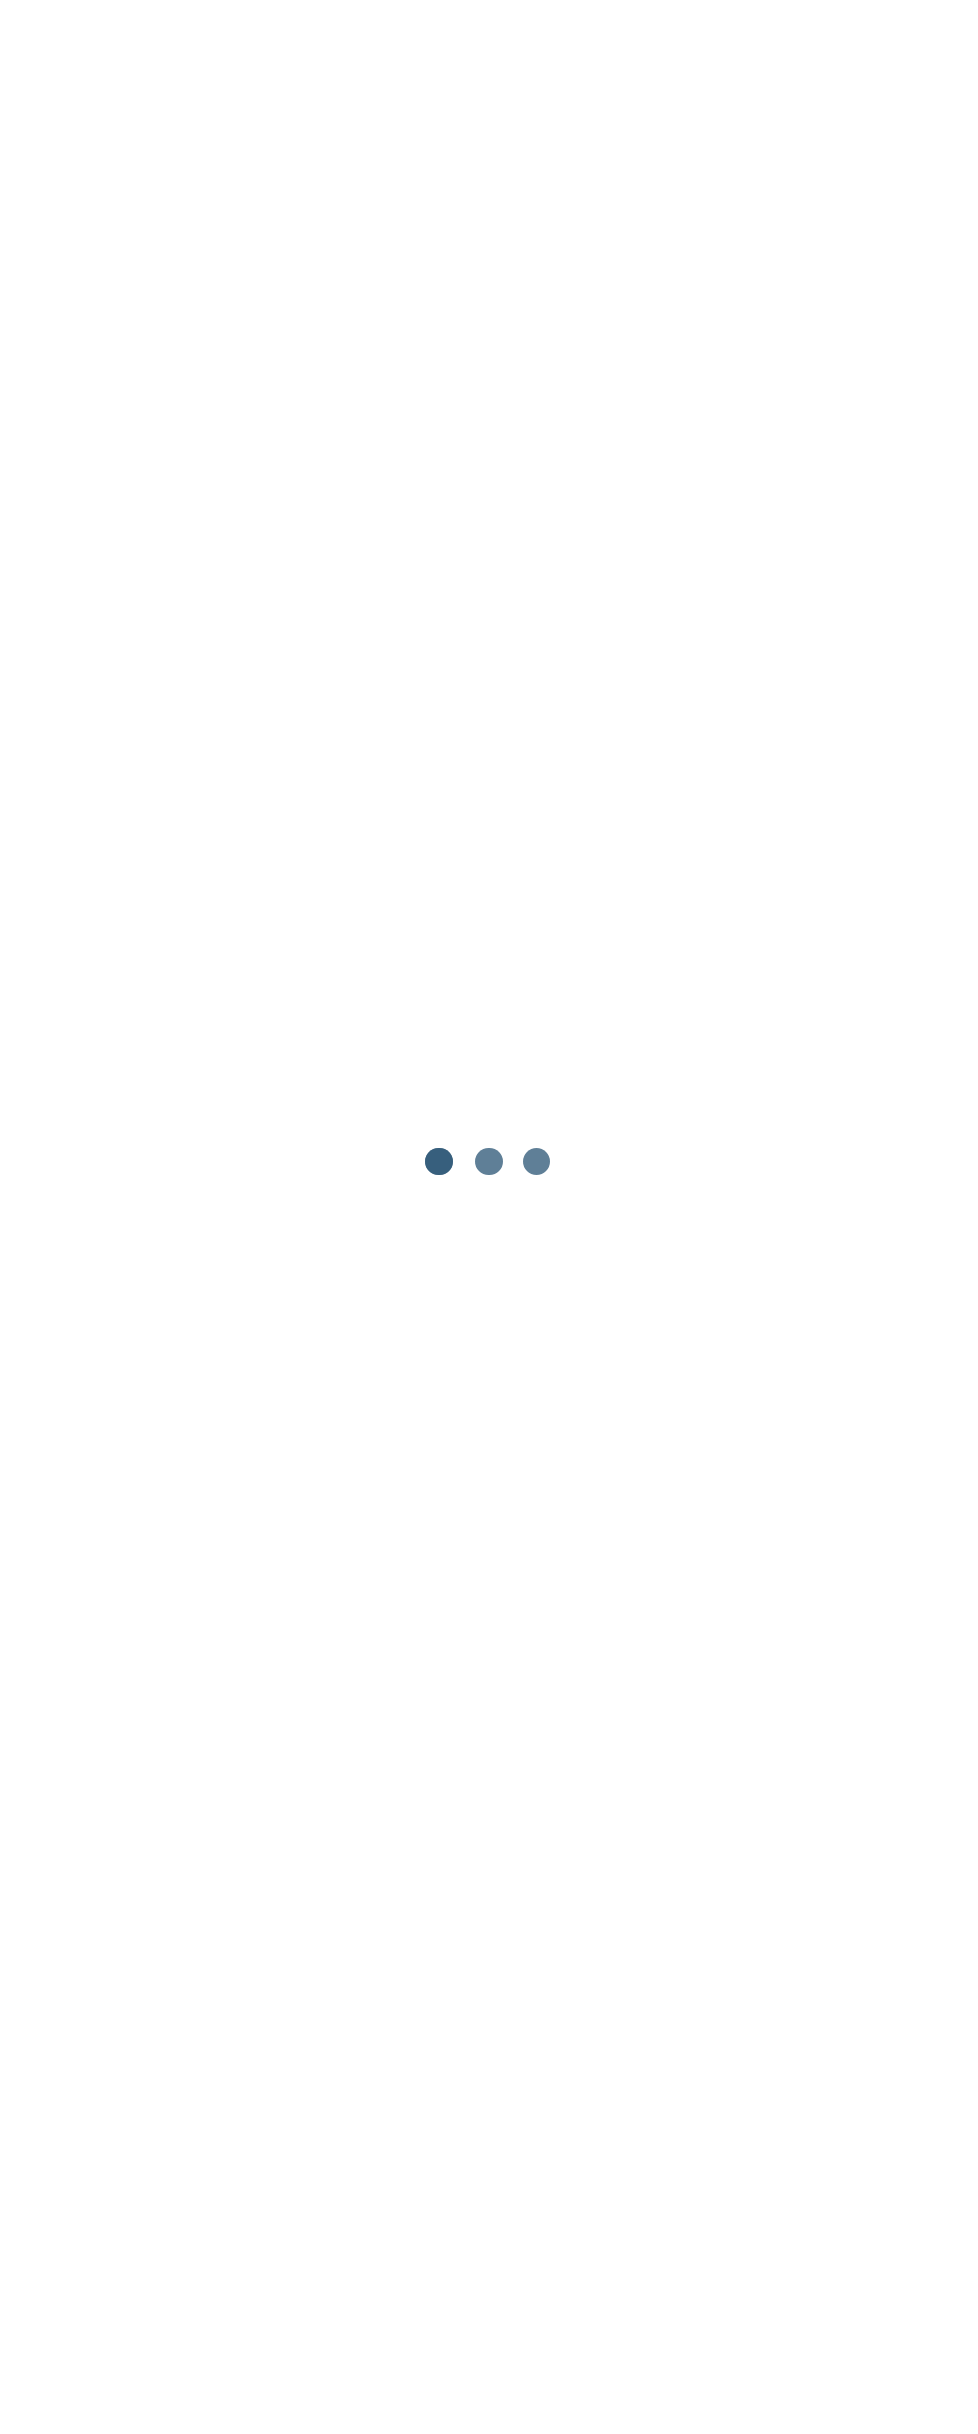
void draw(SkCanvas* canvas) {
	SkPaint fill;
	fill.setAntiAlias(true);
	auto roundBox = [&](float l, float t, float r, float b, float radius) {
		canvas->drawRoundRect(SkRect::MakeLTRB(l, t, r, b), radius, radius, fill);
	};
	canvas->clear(0xFFFFFFFF);
	fill.setColor(0xFF5F7F97);
	roundBox(425, 1148, 453, 1175, 13.5f);
	fill.setColor(0xBF2A5474);
	roundBox(425, 1148, 453, 1175, 13.5f);
	fill.setColor(0xFF5F7F97);
	roundBox(475, 1148, 503, 1175, 13.5f);
	canvas->drawCircle(536.5f, 1161.5f, 13.5f, fill);
}
